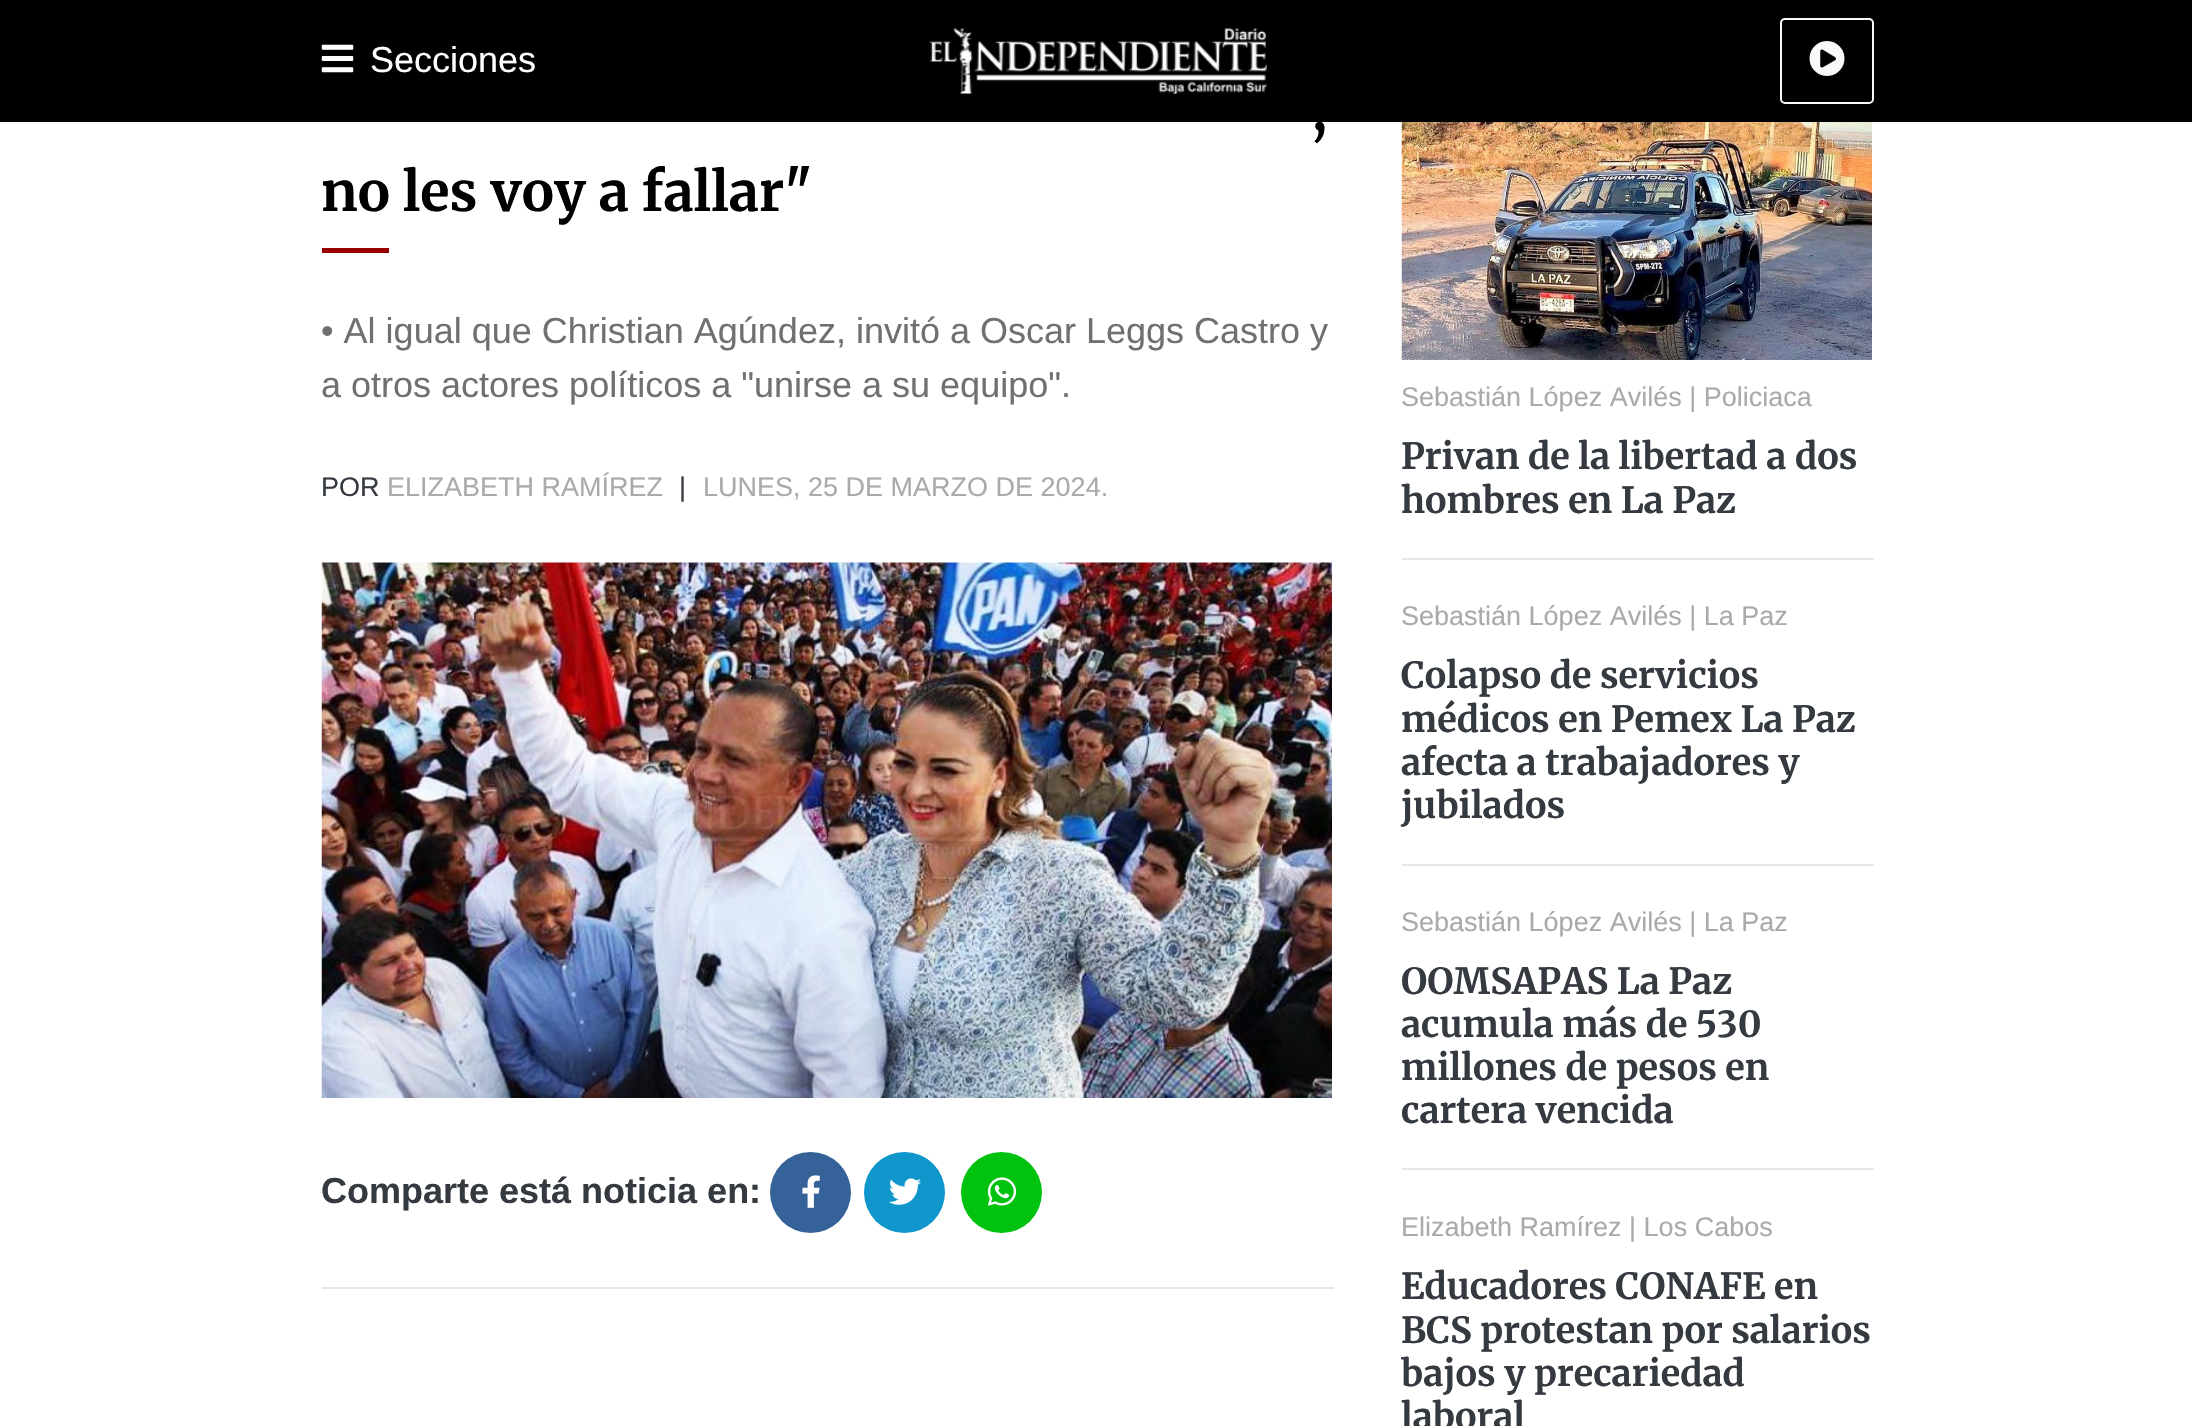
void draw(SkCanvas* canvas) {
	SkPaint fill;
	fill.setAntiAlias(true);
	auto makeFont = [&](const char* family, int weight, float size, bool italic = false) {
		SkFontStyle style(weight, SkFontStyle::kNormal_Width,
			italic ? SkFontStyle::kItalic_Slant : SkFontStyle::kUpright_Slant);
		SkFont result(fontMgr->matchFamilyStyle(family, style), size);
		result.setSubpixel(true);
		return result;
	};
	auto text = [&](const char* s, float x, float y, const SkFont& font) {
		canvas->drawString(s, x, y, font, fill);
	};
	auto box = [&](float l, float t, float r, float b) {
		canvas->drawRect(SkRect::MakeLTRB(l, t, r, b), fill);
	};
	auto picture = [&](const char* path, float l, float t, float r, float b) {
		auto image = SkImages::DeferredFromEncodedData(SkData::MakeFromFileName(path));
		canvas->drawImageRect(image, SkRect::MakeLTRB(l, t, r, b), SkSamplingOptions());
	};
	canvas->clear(0xFFFFFFFF);
	fill.setColor(0xFF000000);
	box(0, 0, 2192, 122);
	picture("image0.png", 321, 44, 354, 73);
	picture("image1.png", 928, 28, 1267, 94);
	fill.setStyle(SkPaint::kStroke_Style);
	fill.setStrokeWidth(2);
	fill.setColor(0xFFF8F9FA);
	canvas->drawRoundRect(SkRect::MakeLTRB(1781, 19, 1873, 103), 4, 4, fill);
	picture("image2.png", 1809, 41, 1845, 76);
	fill.setStyle(SkPaint::kFill_Style);
	fill.setColor(0xFF990000);
	box(322, 248, 389, 253);
	picture("image3.png", 321, 562, 1332, 1098);
	fill.setColor(0xFF356299);
	canvas->drawCircle(810.5f, 1192.5f, 40.5f, fill);
	picture("image4.png", 802, 1175, 820, 1208);
	fill.setColor(0xFF0F96CB);
	canvas->drawCircle(904.5f, 1192.5f, 40.5f, fill);
	picture("image5.png", 889, 1178, 921, 1205);
	fill.setColor(0xFF00C20F);
	canvas->drawCircle(1001.5f, 1192.5f, 40.5f, fill);
	picture("image6.png", 987, 1177, 1017, 1206);
	fill.setColor(0xFFE6E6E6);
	box(322, 1287, 1334, 1289);
	picture("image7.png", 1401, 122, 1872, 360);
	box(1402, 558, 1874, 560);
	box(1402, 864, 1874, 866);
	box(1402, 1168, 1874, 1170);
	auto font1 = makeFont("Liberation Sans", 400, 36);
	fill.setColor(0xFFFFFFFF);
	text("Secciones", 370, 72, font1);
	auto font2 = makeFont("Merriweather", 300, 54);
	fill.setColor(0xFF000000);
	text(",", 1312, 130, font2);
	text("no les voy a fallar\"", 321, 211, font2);
	fill.setColor(0xFF707070);
	text("• Al igual que Christian Agúndez, invitó a Oscar Leggs Castro y", 321, 343, font1);
	text("a otros actores políticos a \"unirse a su equipo\".", 321, 397, font1);
	auto font3 = makeFont("Liberation Sans", 400, 27);
	fill.setColor(0xFF343A40);
	text("POR", 321, 496, font3);
	fill.setColor(0xFFAAAAAA);
	text("ELIZABETH RAMÍREZ", 387, 496, font3);
	fill.setColor(0xFF343A40);
	text("|", 679, 496, font3);
	fill.setColor(0xFFAAAAAA);
	text("LUNES, 25 DE MARZO DE 2024.", 703, 496, font3);
	auto font4 = makeFont("Liberation Sans", 700, 36);
	fill.setColor(0xFF343A40);
	text("Comparte está noticia en:", 321, 1203, font4);
	fill.setColor(0xFFAAAAAA);
	text("Sebastián López Avilés | Policiaca", 1401, 406, font3);
	auto font5 = makeFont("Merriweather", 300, 36);
	fill.setColor(0xFF343A40);
	text("Privan de la libertad a dos", 1401, 469, font5);
	text("hombres en La Paz", 1401, 513, font5);
	fill.setColor(0xFFAAAAAA);
	text("Sebastián López Avilés | La Paz", 1401, 625, font3);
	fill.setColor(0xFF343A40);
	text("Colapso de servicios", 1401, 688, font5);
	text("médicos en Pemex La Paz", 1401, 732, font5);
	text("afecta a trabajadores y", 1401, 775, font5);
	text("jubilados", 1401, 818, font5);
	fill.setColor(0xFFAAAAAA);
	text("Sebastián López Avilés | La Paz", 1401, 931, font3);
	fill.setColor(0xFF343A40);
	text("OOMSAPAS La Paz", 1401, 994, font5);
	text("acumula más de 530", 1401, 1037, font5);
	text("millones de pesos en", 1401, 1080, font5);
	text("cartera vencida", 1401, 1123, font5);
	fill.setColor(0xFFAAAAAA);
	text("Elizabeth Ramírez | Los Cabos", 1401, 1236, font3);
	fill.setColor(0xFF343A40);
	text("Educadores CONAFE en", 1401, 1299, font5);
	text("BCS protestan por salarios", 1401, 1343, font5);
	text("bajos y precariedad", 1401, 1386, font5);
	text("laboral", 1401, 1429, font5);
}
